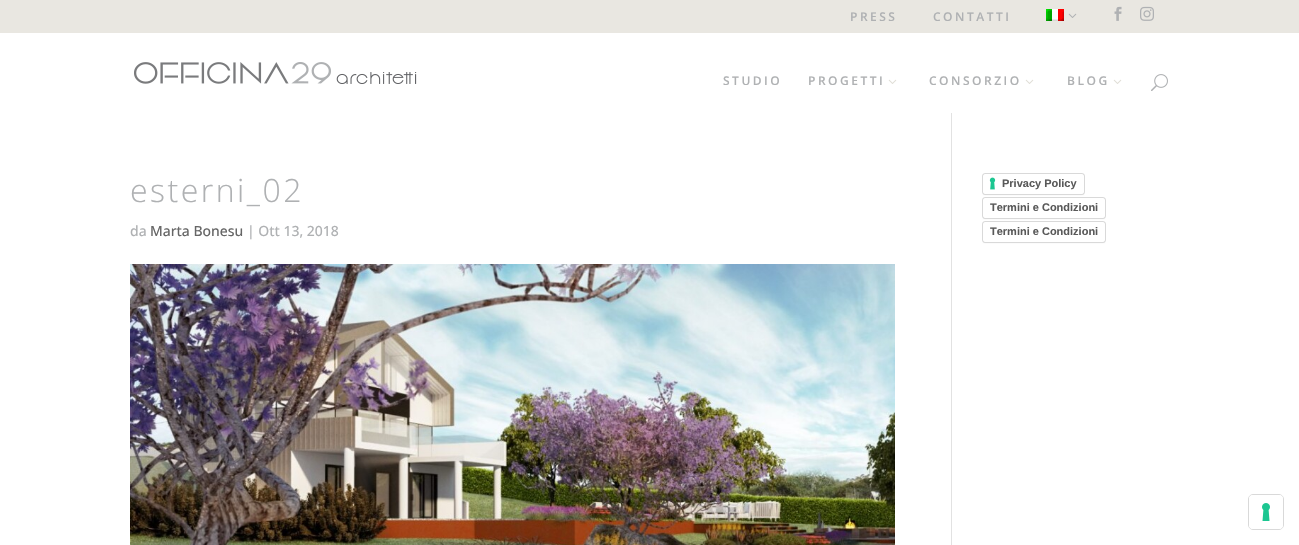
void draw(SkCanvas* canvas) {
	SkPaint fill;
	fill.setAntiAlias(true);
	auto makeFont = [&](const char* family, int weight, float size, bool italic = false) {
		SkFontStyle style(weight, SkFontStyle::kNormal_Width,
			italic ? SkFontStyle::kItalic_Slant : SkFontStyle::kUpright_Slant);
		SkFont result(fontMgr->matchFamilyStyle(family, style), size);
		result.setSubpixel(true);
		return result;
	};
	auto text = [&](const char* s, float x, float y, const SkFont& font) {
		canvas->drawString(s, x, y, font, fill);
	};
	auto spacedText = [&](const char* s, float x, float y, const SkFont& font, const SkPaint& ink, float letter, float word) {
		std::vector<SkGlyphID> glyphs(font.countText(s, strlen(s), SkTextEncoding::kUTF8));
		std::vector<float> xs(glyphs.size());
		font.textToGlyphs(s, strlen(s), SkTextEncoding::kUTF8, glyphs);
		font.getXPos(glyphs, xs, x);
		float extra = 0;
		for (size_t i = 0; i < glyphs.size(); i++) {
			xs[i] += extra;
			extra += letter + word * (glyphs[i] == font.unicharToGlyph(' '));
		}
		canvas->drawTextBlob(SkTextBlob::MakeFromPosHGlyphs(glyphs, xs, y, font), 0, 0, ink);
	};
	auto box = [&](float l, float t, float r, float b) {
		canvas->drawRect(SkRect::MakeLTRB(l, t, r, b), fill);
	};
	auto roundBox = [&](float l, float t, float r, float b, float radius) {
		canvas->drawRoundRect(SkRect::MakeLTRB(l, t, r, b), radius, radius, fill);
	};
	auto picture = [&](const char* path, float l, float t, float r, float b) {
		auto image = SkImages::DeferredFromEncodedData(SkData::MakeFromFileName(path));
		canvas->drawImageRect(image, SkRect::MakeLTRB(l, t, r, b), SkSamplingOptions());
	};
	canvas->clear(0xFFFFFFFF);
	fill.setColor(0xFFE9E7E1);
	box(0, 0, 1299, 33);
	picture("image0.png", 1046, 9, 1064, 21);
	picture("image1.png", 1068, 13, 1077, 18);
	picture("image2.png", 1114, 6, 1122, 21);
	picture("image3.png", 1140, 6, 1154, 21);
	picture("image4.png", 134, 62, 417, 84);
	picture("image5.png", 888, 79, 897, 84);
	picture("image5.png", 1025, 79, 1034, 84);
	picture("image5.png", 1113, 79, 1122, 84);
	picture("image6.png", 1151, 74, 1168, 91);
	fill.setColor(0xFFE2E2E2);
	box(951, 113, 952, 545);
	picture("image7.png", 130, 264, 895, 545);
	fill.setColor(0x26000000);
	fill.setMaskFilter(SkMaskFilter::MakeBlur(kNormal_SkBlurStyle, 0.5f));
	canvas->drawRoundRect(SkRect::MakeLTRB(983, 175, 1084, 195), 2, 2, fill);
	fill.setMaskFilter(nullptr);
	fill.setColor(0xFFFFFFFF);
	roundBox(982, 173, 1085, 195, 3);
	picture("image8.png", 989, 177, 996, 190);
	fill.setStyle(SkPaint::kStroke_Style);
	fill.setStrokeWidth(1);
	fill.setColor(0x26000000);
	canvas->drawRoundRect(SkRect::MakeLTRB(982.5f, 173.5f, 1084.5f, 194.5f), 2.5f, 2.5f, fill);
	fill.setStyle(SkPaint::kFill_Style);
	fill.setMaskFilter(SkMaskFilter::MakeBlur(kNormal_SkBlurStyle, 0.5f));
	canvas->drawRoundRect(SkRect::MakeLTRB(983, 199, 1105, 219), 2, 2, fill);
	fill.setMaskFilter(nullptr);
	fill.setColor(0xFFFFFFFF);
	roundBox(982, 197, 1106, 219, 3);
	fill.setStyle(SkPaint::kStroke_Style);
	fill.setColor(0x26000000);
	canvas->drawRoundRect(SkRect::MakeLTRB(982.5f, 197.5f, 1105.5f, 218.5f), 2.5f, 2.5f, fill);
	fill.setStyle(SkPaint::kFill_Style);
	fill.setMaskFilter(SkMaskFilter::MakeBlur(kNormal_SkBlurStyle, 0.5f));
	canvas->drawRoundRect(SkRect::MakeLTRB(983, 223, 1105, 243), 2, 2, fill);
	fill.setMaskFilter(nullptr);
	fill.setColor(0xFFFFFFFF);
	roundBox(982, 221, 1106, 243, 3);
	fill.setStyle(SkPaint::kStroke_Style);
	fill.setColor(0x26000000);
	canvas->drawRoundRect(SkRect::MakeLTRB(982.5f, 221.5f, 1105.5f, 242.5f), 2.5f, 2.5f, fill);
	fill.setColor(0xFFD9D9D9);
	canvas->drawRoundRect(SkRect::MakeLTRB(1248.5f, 494.5f, 1283.5f, 529.5f), 4.5f, 4.5f, fill);
	fill.setStyle(SkPaint::kFill_Style);
	fill.setColor(0xFFFFFFFF);
	roundBox(1249, 495, 1283, 529, 4);
	picture("image9.png", 1262, 503, 1270, 521);
	auto font1 = makeFont("Open Sans", 600, 12);
	fill.setColor(0xFFAFB1B3);
	spacedText("PRESS", 850, 21, font1, fill, 2.5f, 0);
	spacedText("CONTATTI", 933, 21, font1, fill, 2.5f, 0);
	spacedText("STUDIO", 723, 85, font1, fill, 2.5f, 0);
	spacedText("PROGETTI", 808, 85, font1, fill, 2.5f, 0);
	spacedText("CONSORZIO", 929, 85, font1, fill, 2.5f, 0);
	spacedText("BLOG", 1067, 85, font1, fill, 2.5f, 0);
	auto font2 = makeFont("Open Sans", 300, 32);
	spacedText("esterni_02", 130, 202, font2, fill, 2.5f, 0);
	auto font3 = makeFont("Open Sans", 500, 14);
	text("da", 130, 236, font3);
	fill.setColor(0xFF666666);
	text("Marta Bonesu", 150, 236, font3);
	fill.setColor(0xFFAFB1B3);
	text("| Ott 13, 2018", 247, 236, font3);
	auto font4 = makeFont("Liberation Sans", 700, 11);
	fill.setColor(0xFF595959);
	text("Privacy Policy", 1002, 187, font4);
	text("Termini e Condizioni", 990, 211, font4);
	text("Termini e Condizioni", 990, 235, font4);
}
